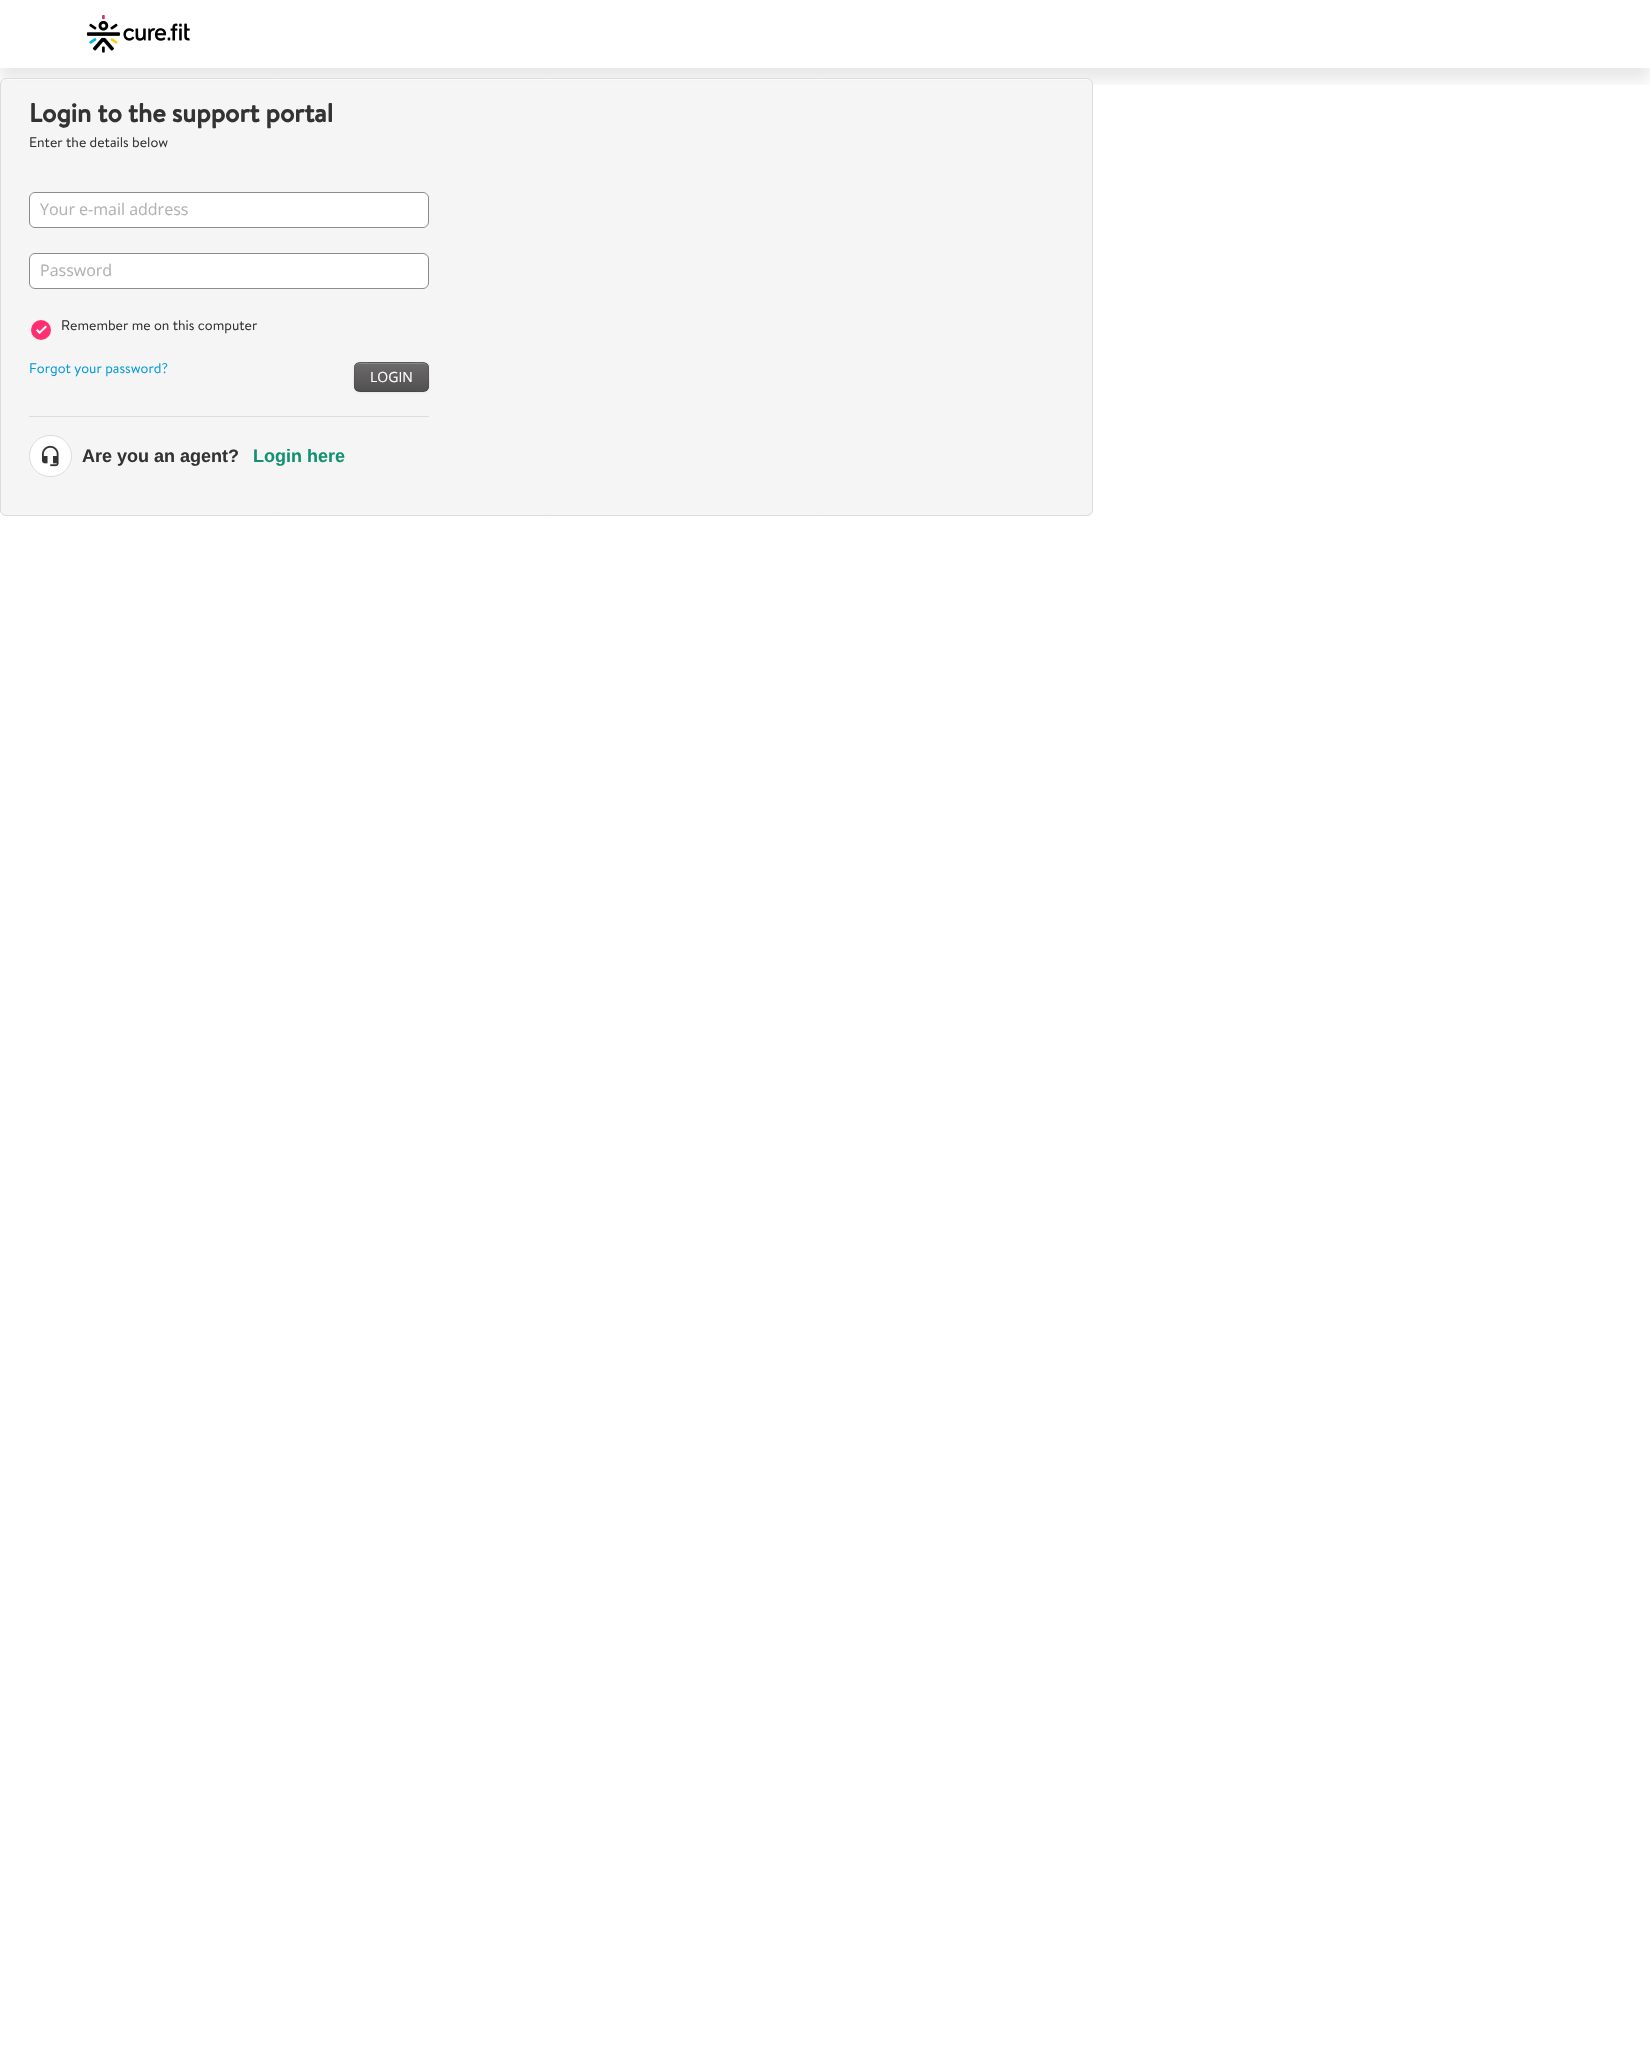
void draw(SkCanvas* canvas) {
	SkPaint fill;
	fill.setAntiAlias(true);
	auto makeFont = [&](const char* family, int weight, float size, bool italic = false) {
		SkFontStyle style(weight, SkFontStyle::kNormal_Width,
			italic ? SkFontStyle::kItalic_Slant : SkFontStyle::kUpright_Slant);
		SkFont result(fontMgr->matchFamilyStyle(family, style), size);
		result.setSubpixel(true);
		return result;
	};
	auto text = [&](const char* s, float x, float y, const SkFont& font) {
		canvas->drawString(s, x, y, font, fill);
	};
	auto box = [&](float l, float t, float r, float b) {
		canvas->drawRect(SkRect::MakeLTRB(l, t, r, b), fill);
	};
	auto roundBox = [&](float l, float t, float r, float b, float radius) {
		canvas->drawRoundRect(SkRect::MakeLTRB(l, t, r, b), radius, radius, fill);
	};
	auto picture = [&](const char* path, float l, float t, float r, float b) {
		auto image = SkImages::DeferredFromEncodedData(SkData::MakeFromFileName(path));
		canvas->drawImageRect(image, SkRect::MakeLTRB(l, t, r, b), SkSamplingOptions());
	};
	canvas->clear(0xFFFFFFFF);
	canvas->save();
	canvas->clipRect(SkRect::MakeLTRB(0, 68, 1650, 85));
	fill.setColor(0x17000000);
	fill.setMaskFilter(SkMaskFilter::MakeBlur(kNormal_SkBlurStyle, 7));
	canvas->drawRect(SkRect::MakeLTRB(0, 12, 1650, 80), fill);
	fill.setMaskFilter(nullptr);
	canvas->restore();
	picture("image0.png", 86, 15, 190, 53);
	fill.setColor(0xE6F4F4F4);
	roundBox(0, 78, 1093, 516, 6);
	fill.setColor(0xFFFCFCFC);
	canvas->drawPath(SkPathBuilder().moveTo(6, 80).lineTo(1087, 80).cubicTo(1090, 80, 1092, 82, 1092, 85).cubicTo(1092, 82, 1090, 79, 1087, 79).lineTo(6, 79).cubicTo(3, 79, 1, 82, 1, 85).cubicTo(1, 82, 3, 80, 6, 80).close().detach(), fill);
	fill.setStyle(SkPaint::kStroke_Style);
	fill.setStrokeWidth(1);
	fill.setColor(0xFFDCDCDC);
	canvas->drawRoundRect(SkRect::MakeLTRB(0.5f, 78.5f, 1092.5f, 515.5f), 5.5f, 5.5f, fill);
	fill.setStyle(SkPaint::kFill_Style);
	fill.setColor(0xFFFFFFFF);
	canvas->drawRoundRect(SkRect::MakeLTRB(29.5f, 192.5f, 428.5f, 227.5f), 5.5f, 5.5f, fill);
	fill.setStyle(SkPaint::kStroke_Style);
	fill.setColor(0xFF8C8C8C);
	canvas->drawRoundRect(SkRect::MakeLTRB(29.5f, 192.5f, 428.5f, 227.5f), 5.5f, 5.5f, fill);
	fill.setStyle(SkPaint::kFill_Style);
	fill.setColor(0xFFFFFFFF);
	canvas->drawRoundRect(SkRect::MakeLTRB(29.5f, 253.5f, 428.5f, 288.5f), 5.5f, 5.5f, fill);
	fill.setStyle(SkPaint::kStroke_Style);
	fill.setColor(0xFF8C8C8C);
	canvas->drawRoundRect(SkRect::MakeLTRB(29.5f, 253.5f, 428.5f, 288.5f), 5.5f, 5.5f, fill);
	fill.setStyle(SkPaint::kFill_Style);
	fill.setColor(0xFFFF2F70);
	canvas->drawCircle(41, 330, 10, fill);
	fill.setColor(0xFFFFFFFF);
	canvas->drawPath(SkPathBuilder().moveTo(45.5f, 325.5f).lineTo(47, 327).lineTo(39.5f, 334).lineTo(38.5f, 332.5f).close().detach(), fill);
	canvas->drawPath(SkPathBuilder().moveTo(37.5f, 329).lineTo(41, 332.5f).lineTo(39.5f, 334).lineTo(36, 330.5f).close().detach(), fill);
	fill.setColor(0x0D000000);
	fill.setMaskFilter(SkMaskFilter::MakeBlur(kNormal_SkBlurStyle, 1));
	canvas->drawRoundRect(SkRect::MakeLTRB(354, 363, 429, 393), 6, 6, fill);
	fill.setMaskFilter(nullptr);
	fill.setColor(0xFF626060);
	roundBox(354, 362, 429, 392, 6);
	canvas->save();
	canvas->clipPath(SkPathBuilder().moveTo(360, 362).lineTo(423, 362).cubicTo(426.5f, 362, 429, 364.5f, 429, 368).lineTo(429, 386).cubicTo(429, 389.5f, 426.5f, 392, 423, 392).lineTo(360, 392).cubicTo(356.5f, 392, 354, 389.5f, 354, 386).lineTo(354, 368).cubicTo(354, 364.5f, 356.5f, 362, 360, 362).close().detach(), true);
	{
		const SkColor colors[] = {0xFF6C6A6A, 0xFF525151};
		const float stops[] = {0, 1};
		const SkPoint ends[] = {{392, 363}, {392, 391}};
		fill.setShader(SkGradientShader::MakeLinear(ends, colors, stops, 2, SkTileMode::kClamp));
		fill.setAlpha(255);
	}
	box(354, 363, 429, 391);
	canvas->restore();
	fill.setShader(nullptr);
	fill.setColor(0xFF898888);
	canvas->drawPath(SkPathBuilder().moveTo(360, 364).lineTo(423, 364).cubicTo(426, 364, 428, 366, 428, 369).cubicTo(428, 361, 418, 363, 412, 363).lineTo(370, 363).cubicTo(365, 363, 355, 361, 355, 369).cubicTo(355, 366, 357, 364, 360, 364).close().detach(), fill);
	fill.setStyle(SkPaint::kStroke_Style);
	fill.setColor(0x40000000);
	canvas->drawPath(SkPathBuilder().moveTo(427, 390).cubicTo(426, 391, 424.5f, 391.5f, 423, 391.5f).lineTo(360, 391.5f).cubicTo(358.5f, 391.5f, 357, 391, 356, 390).detach(), fill);
	fill.setColor(0x1A000000);
	canvas->drawPath(SkPathBuilder().moveTo(356, 390).cubicTo(353, 387, 354.5f, 378, 354.5f, 374).cubicTo(354.5f, 360.5f, 356.5f, 362.5f, 370.5f, 362.5f).lineTo(412.5f, 362.5f).cubicTo(429, 362.5f, 428.5f, 361.5f, 428.5f, 377).cubicTo(428.5f, 380.5f, 430, 387, 427, 390).detach(), fill);
	fill.setStyle(SkPaint::kFill_Style);
	fill.setColor(0xFFDDDDDD);
	box(29, 416, 429, 417);
	fill.setColor(0xFFFFFFFF);
	canvas->drawRoundRect(SkRect::MakeLTRB(29.5f, 435.5f, 71.5f, 476.5f), 20.5f, 20.5f, fill);
	fill.setStyle(SkPaint::kStroke_Style);
	fill.setColor(0xFFDDDDDD);
	canvas->drawRoundRect(SkRect::MakeLTRB(29.5f, 435.5f, 71.5f, 476.5f), 20.5f, 20.5f, fill);
	picture("image1.png", 42, 445, 59, 467);
	auto font1 = makeFont("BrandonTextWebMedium", 700, 26);
	fill.setStyle(SkPaint::kFill_Style);
	fill.setColor(0xFF333333);
	text("Login to the support portal", 29, 122, font1);
	auto font2 = makeFont("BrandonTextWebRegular", 400, 14);
	text("Enter the details below", 29, 147, font2);
	auto font3 = makeFont("Open Sans", 400, 16);
	fill.setColor(0xFFB2B2B2);
	text("Your e-mail address", 40, 215, font3);
	text("Password", 40, 276, font3);
	fill.setColor(0xFF333333);
	text("Remember me on this computer", 61, 330, font2);
	fill.setColor(0xFF049CDB);
	text("Forgot your password?", 29, 373, font2);
	auto font4 = makeFont("Open Sans", 400, 14);
	fill.setColor(0xFFFFFFFF);
	text("LOGIN", 370, 382, font4);
	auto font5 = makeFont("Liberation Sans", 700, 18);
	fill.setColor(0xFF333333);
	text("Are you an agent?", 82, 462, font5);
	fill.setColor(0xFF139272);
	text("Login here", 253, 462, font5);
}
